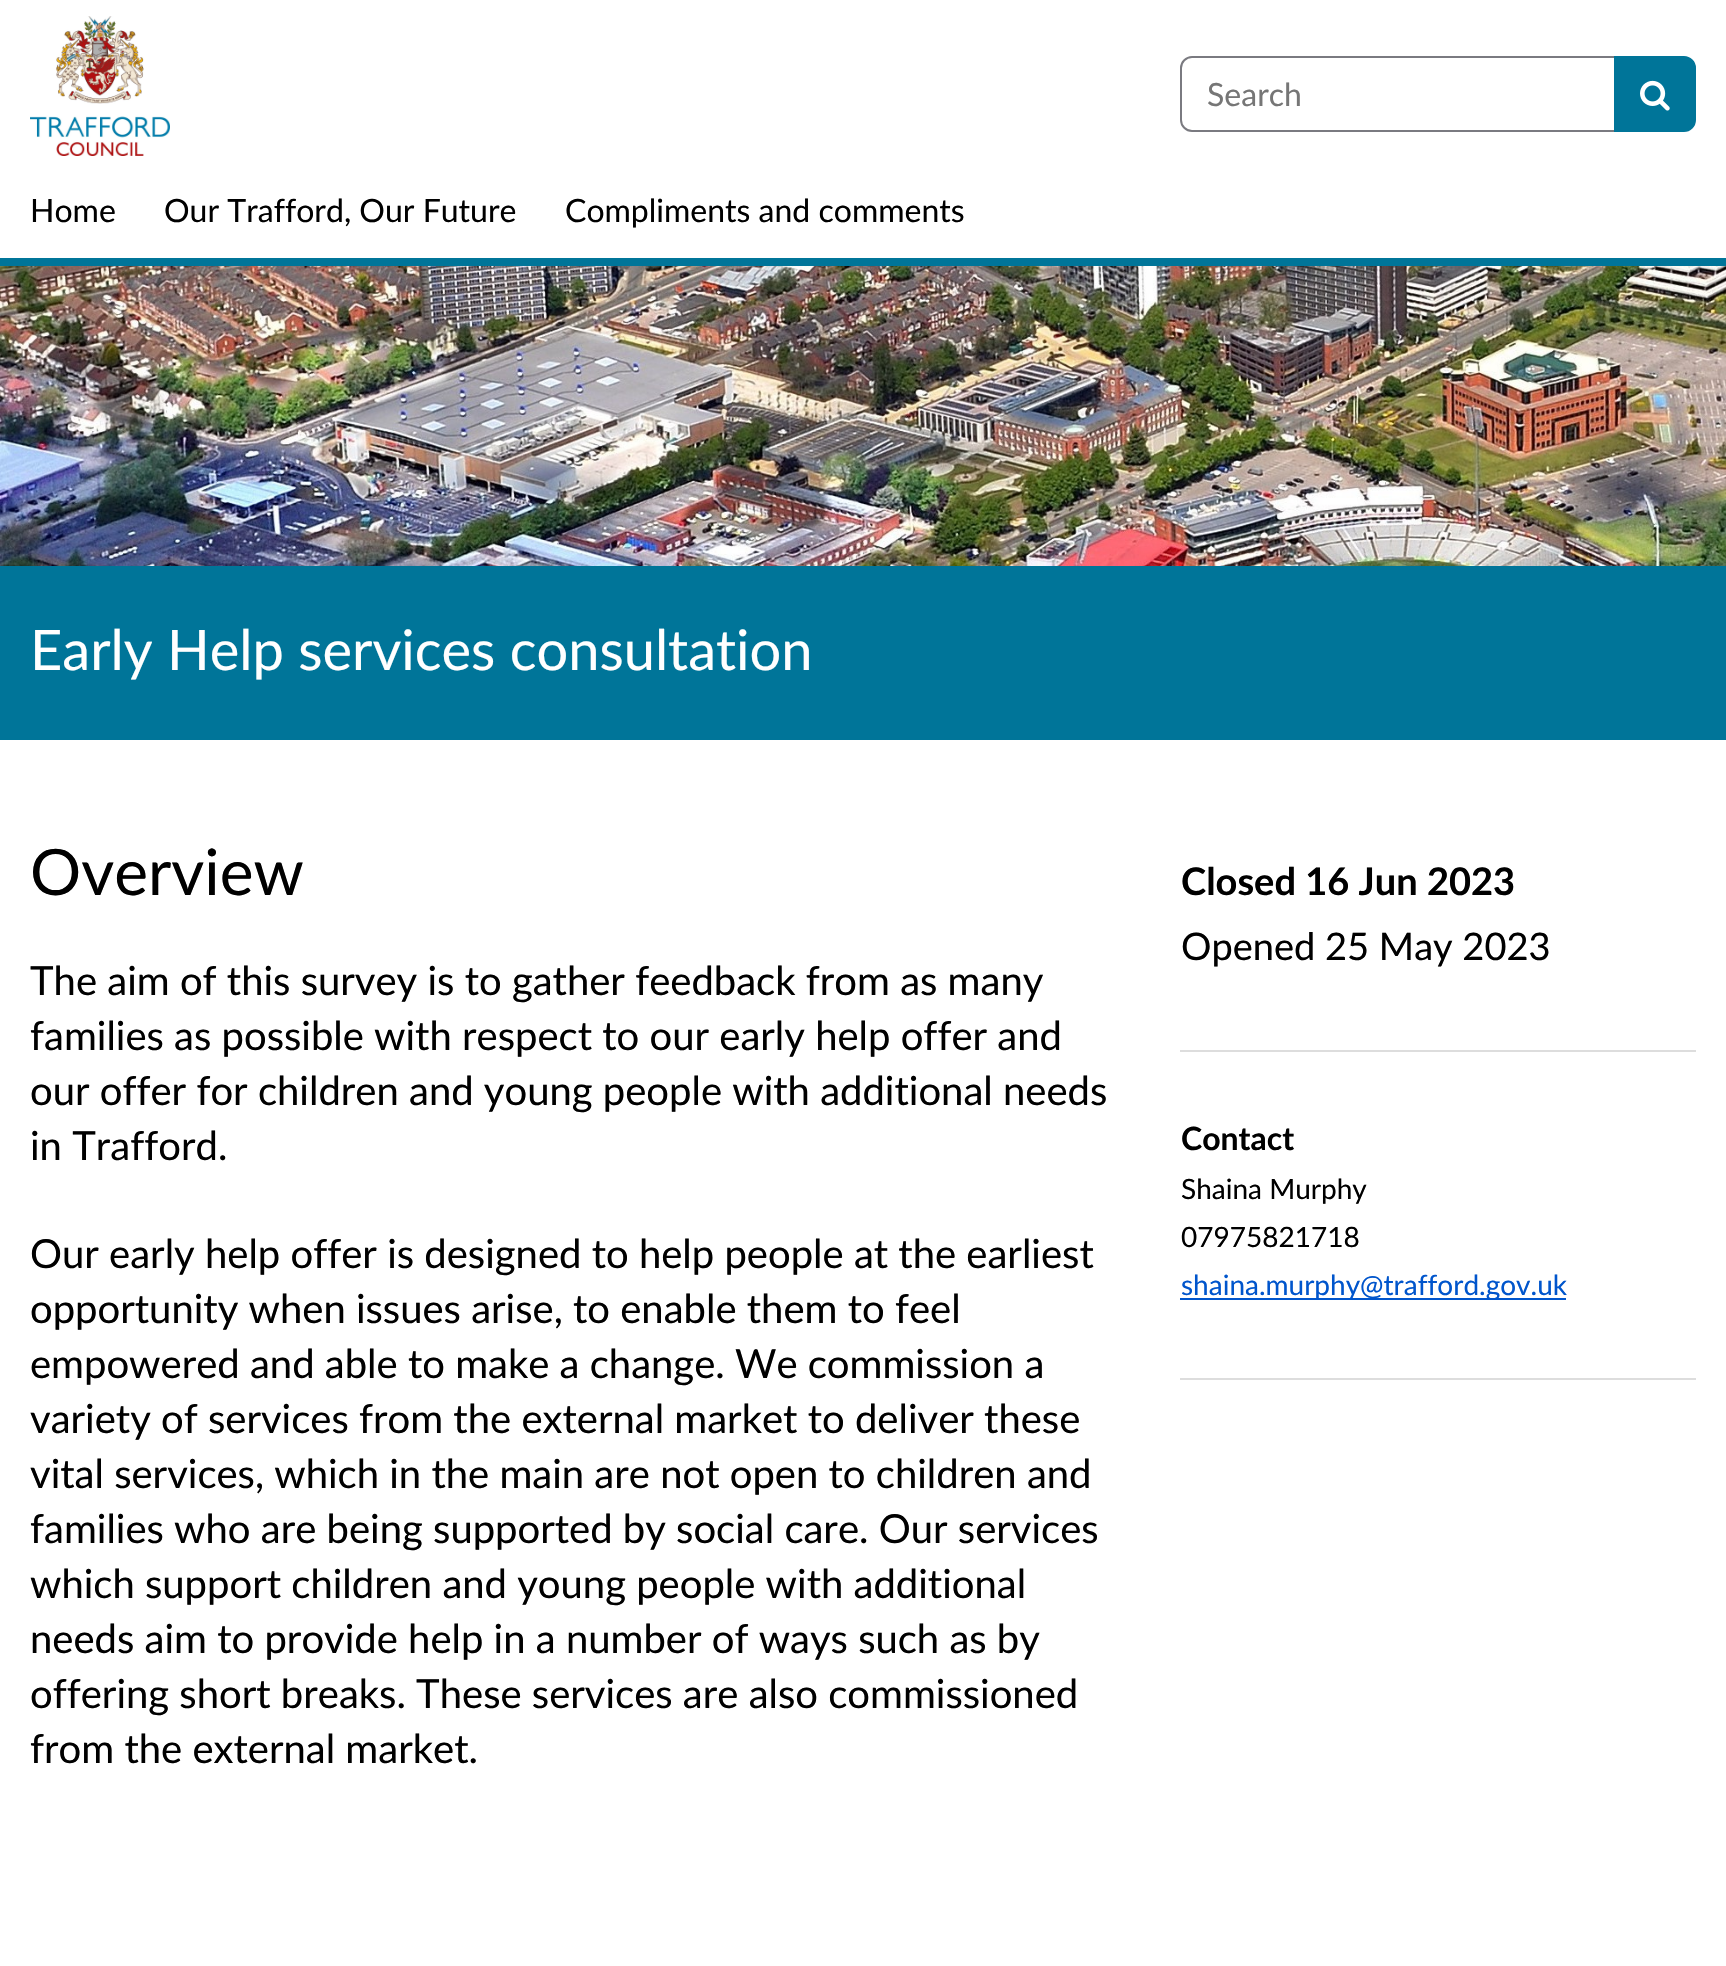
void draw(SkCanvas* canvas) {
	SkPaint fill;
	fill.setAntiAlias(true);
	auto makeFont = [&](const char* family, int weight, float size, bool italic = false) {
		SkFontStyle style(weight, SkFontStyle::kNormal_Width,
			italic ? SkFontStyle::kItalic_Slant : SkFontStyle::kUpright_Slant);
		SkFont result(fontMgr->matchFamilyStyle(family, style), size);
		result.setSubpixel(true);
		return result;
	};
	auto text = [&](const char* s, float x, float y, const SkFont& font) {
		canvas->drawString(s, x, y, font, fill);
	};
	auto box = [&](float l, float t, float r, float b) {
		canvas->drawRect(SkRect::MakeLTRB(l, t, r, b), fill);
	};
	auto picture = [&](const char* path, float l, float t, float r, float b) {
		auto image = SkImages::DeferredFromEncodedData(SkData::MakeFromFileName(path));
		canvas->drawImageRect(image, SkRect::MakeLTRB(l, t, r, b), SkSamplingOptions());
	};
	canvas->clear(0xFFFFFFFF);
	fill.setColor(0xFF007599);
	box(0, 258, 1726, 266);
	picture("image0.png", 30, 16, 170, 156);
	fill.setStyle(SkPaint::kStroke_Style);
	fill.setStrokeWidth(2);
	fill.setColor(0xFF7A7A80);
	canvas->drawPath(SkPathBuilder().moveTo(1192, 57).lineTo(1615, 57).lineTo(1615, 131).lineTo(1192, 131).cubicTo(1186, 131, 1181, 126, 1181, 120).lineTo(1181, 68).cubicTo(1181, 62, 1186, 57, 1192, 57).close().detach(), fill);
	fill.setStyle(SkPaint::kFill_Style);
	fill.setColor(0xFF007599);
	canvas->drawPath(SkPathBuilder().moveTo(1615, 57).lineTo(1684, 57).cubicTo(1690, 57, 1695, 62, 1695, 68).lineTo(1695, 120).cubicTo(1695, 126, 1690, 131, 1684, 131).lineTo(1615, 131).close().detach(), fill);
	fill.setStyle(SkPaint::kStroke_Style);
	canvas->drawPath(SkPathBuilder().moveTo(1615, 57).lineTo(1684, 57).cubicTo(1690, 57, 1695, 62, 1695, 68).lineTo(1695, 120).cubicTo(1695, 126, 1690, 131, 1684, 131).lineTo(1615, 131).close().detach(), fill);
	picture("image1.png", 1640, 80, 1670, 111);
	picture("image2.png", 0, 266, 1726, 566);
	fill.setStyle(SkPaint::kFill_Style);
	box(0, 566, 1726, 740);
	fill.setColor(0xFFDDDDDD);
	box(1180, 1050, 1696, 1052);
	box(1180, 1378, 1696, 1380);
	fill.setColor(0xFF0055CC);
	box(1180, 1298, 1566, 1300);
	auto font1 = makeFont("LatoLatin", 400, 32);
	fill.setColor(0xFF767676);
	text("Search", 1207, 106, font1);
	fill.setColor(0xFF000000);
	text("Home", 30, 222, font1);
	text("Our Trafford, Our Future", 164, 222, font1);
	text("Compliments and comments", 565, 222, font1);
	auto font2 = makeFont("LatoLatin", 400, 56);
	fill.setColor(0xFFFFFFFF);
	text("Early Help services consultation", 30, 670, font2);
	auto font3 = makeFont("LatoLatin", 400, 64);
	fill.setColor(0xFF000000);
	text("Overview", 30, 895, font3);
	auto font4 = makeFont("LatoLatin", 400, 40);
	text("The aim of this survey is to gather feedback from as many", 30, 995, font4);
	text("families as possible with respect to our early help offer and", 30, 1050, font4);
	text("our offer for children and young people with additional needs", 30, 1105, font4);
	text("in Trafford.", 30, 1160, font4);
	text("Our early help offer is designed to help people at the earliest", 30, 1268, font4);
	text("opportunity when issues arise, to enable them to feel", 30, 1323, font4);
	text("empowered and able to make a change. We commission a", 30, 1378, font4);
	text("variety of services from the external market to deliver these", 30, 1433, font4);
	text("vital services, which in the main are not open to children and", 30, 1488, font4);
	text("families who are being supported by social care. Our services", 30, 1543, font4);
	text("which support children and young people with additional", 30, 1598, font4);
	text("needs aim to provide help in a number of ways such as by", 30, 1653, font4);
	text("offering short breaks. These services are also commissioned", 30, 1708, font4);
	text("from the external market.", 30, 1763, font4);
	auto font5 = makeFont("LatoLatin", 700, 38);
	text("Closed 16 Jun 2023", 1181, 895, font5);
	auto font6 = makeFont("LatoLatin", 400, 38);
	text("Opened 25 May 2023", 1181, 960, font6);
	auto font7 = makeFont("LatoLatin", 700, 32);
	text("Contact", 1181, 1150, font7);
	auto font8 = makeFont("LatoLatin", 400, 28);
	text("Shaina Murphy", 1181, 1199, font8);
	text("07975821718", 1181, 1247, font8);
	fill.setColor(0xFF0055CC);
	text("shaina.murphy@trafford.gov.uk", 1181, 1295, font8);
}
